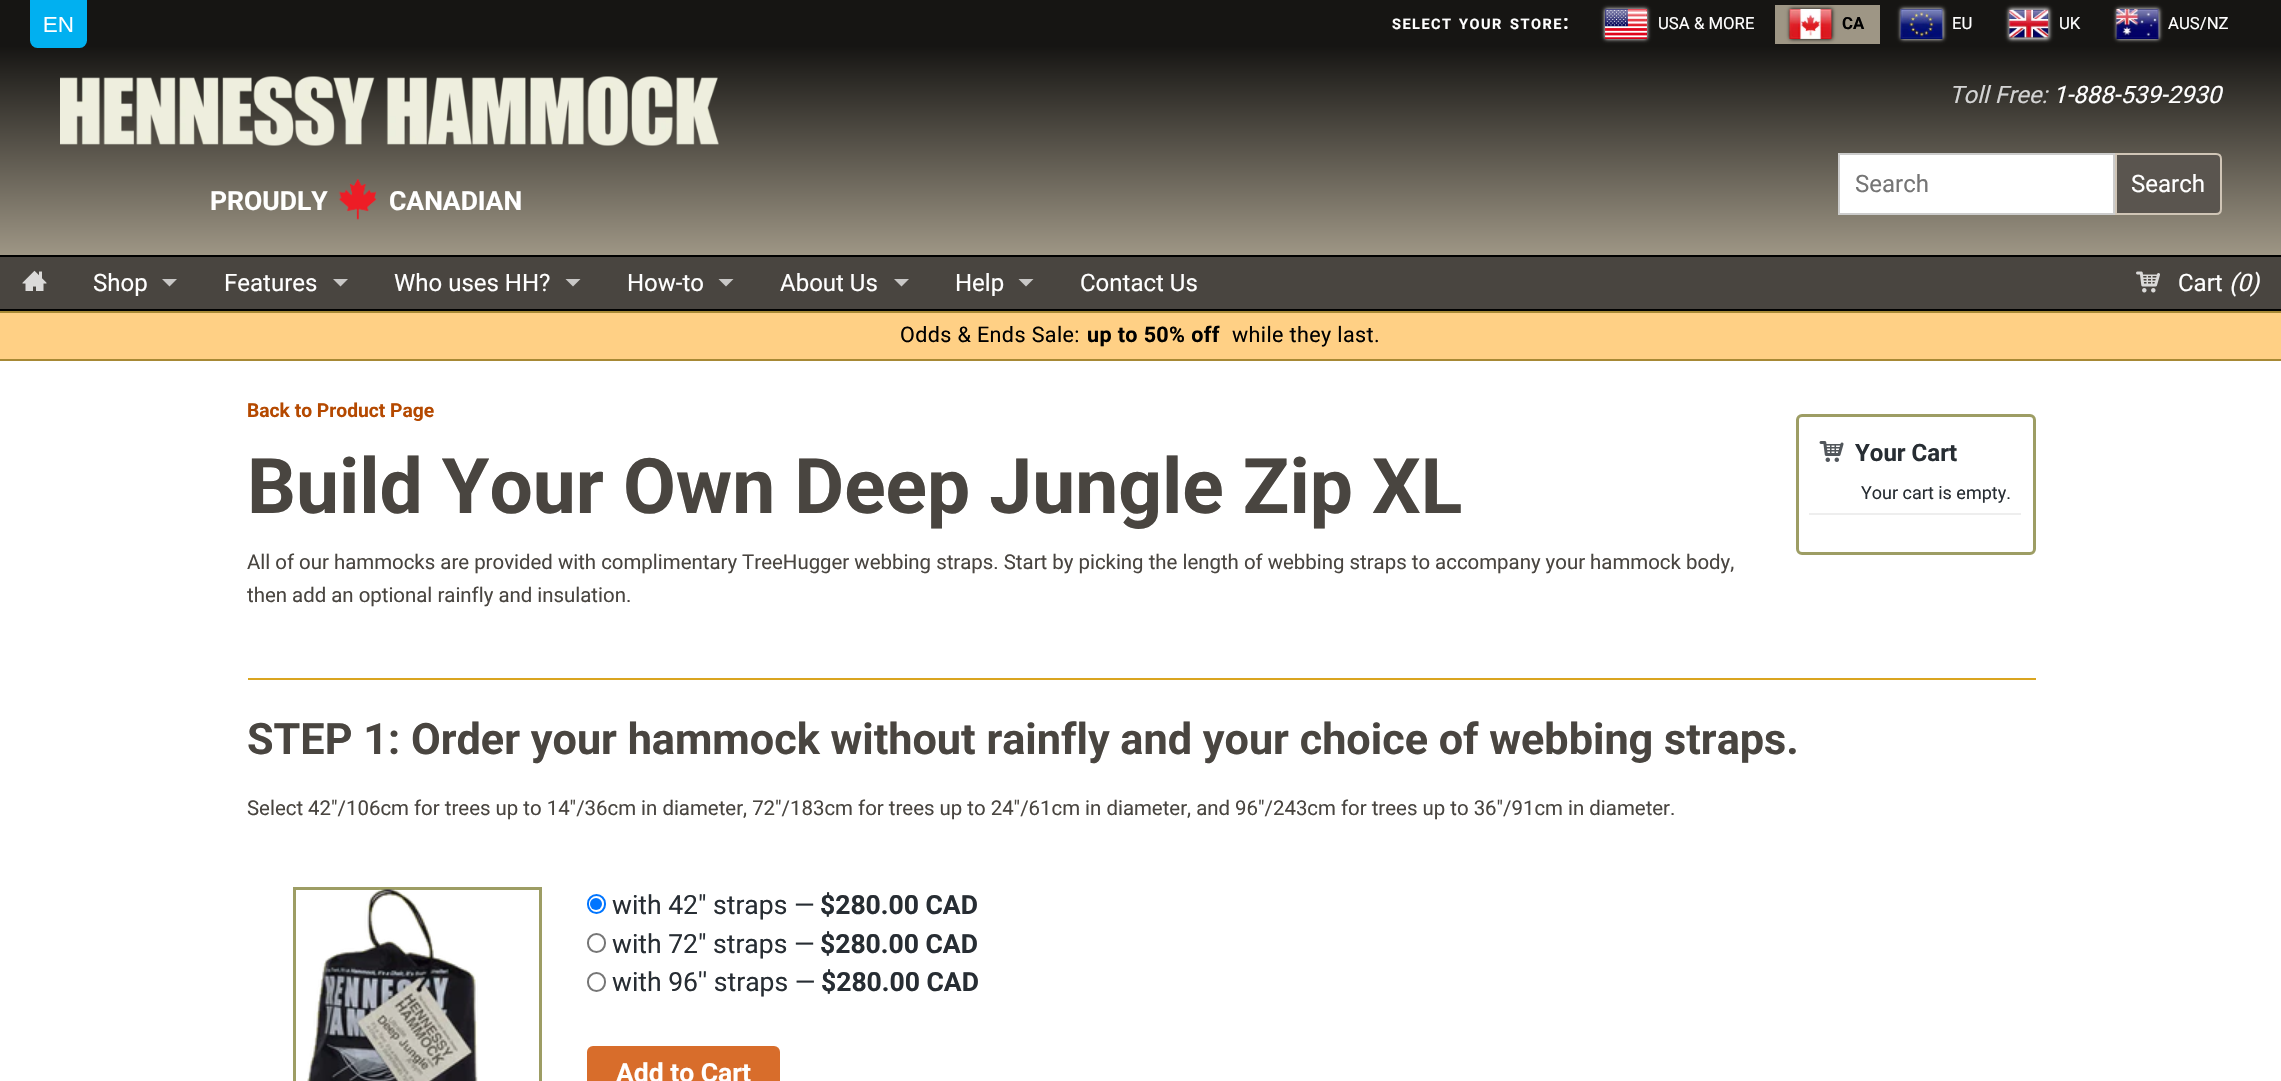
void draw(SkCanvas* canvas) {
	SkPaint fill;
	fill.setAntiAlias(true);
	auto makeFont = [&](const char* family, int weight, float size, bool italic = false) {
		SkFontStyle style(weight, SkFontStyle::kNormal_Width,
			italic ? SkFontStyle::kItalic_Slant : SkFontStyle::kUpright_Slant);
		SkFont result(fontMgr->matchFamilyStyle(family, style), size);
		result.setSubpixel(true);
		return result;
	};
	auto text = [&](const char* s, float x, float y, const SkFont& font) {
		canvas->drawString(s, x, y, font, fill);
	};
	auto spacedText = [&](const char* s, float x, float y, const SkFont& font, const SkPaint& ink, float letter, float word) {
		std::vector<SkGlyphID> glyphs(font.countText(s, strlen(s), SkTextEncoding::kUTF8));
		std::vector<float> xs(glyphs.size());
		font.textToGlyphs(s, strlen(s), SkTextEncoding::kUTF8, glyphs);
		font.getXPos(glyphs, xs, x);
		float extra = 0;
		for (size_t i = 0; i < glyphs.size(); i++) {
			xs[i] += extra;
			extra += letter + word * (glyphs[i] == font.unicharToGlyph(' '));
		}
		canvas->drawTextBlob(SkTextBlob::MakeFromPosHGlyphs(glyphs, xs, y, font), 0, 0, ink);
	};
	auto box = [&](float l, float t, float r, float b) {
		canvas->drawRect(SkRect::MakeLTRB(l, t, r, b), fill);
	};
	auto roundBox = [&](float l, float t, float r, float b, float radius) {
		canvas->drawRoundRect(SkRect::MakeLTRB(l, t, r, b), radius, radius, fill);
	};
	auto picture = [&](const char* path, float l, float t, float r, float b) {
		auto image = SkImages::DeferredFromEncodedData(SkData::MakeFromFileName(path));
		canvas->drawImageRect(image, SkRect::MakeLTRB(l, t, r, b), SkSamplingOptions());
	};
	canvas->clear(0xFFFFFFFF);
	fill.setColor(0xFF161513);
	box(0, 0, 2281, 47);
	{
		const SkColor colors[] = {0xFF161513, 0xFF9E9685};
		const float stops[] = {0, 1};
		const SkPoint ends[] = {{1141, 46}, {1141, 255}};
		fill.setShader(SkGradientShader::MakeLinear(ends, colors, stops, 2, SkTileMode::kClamp));
		fill.setAlpha(255);
	}
	box(0, 47, 2281, 255);
	picture("image0.png", 30, 0, 87, 48);
	fill.setShader(nullptr);
	fill.setColor(0xFFFFFFFF);
	fill.setMaskFilter(SkMaskFilter::MakeBlur(kNormal_SkBlurStyle, 2));
	canvas->drawRect(SkRect::MakeLTRB(1605, 9, 1647, 39), fill);
	fill.setMaskFilter(nullptr);
	picture("image1.png", 1605, 9, 1647, 39);
	fill.setColor(0xFF9E9685);
	box(1775, 5, 1880, 44);
	fill.setColor(0xFF000000);
	fill.setMaskFilter(SkMaskFilter::MakeBlur(kNormal_SkBlurStyle, 2));
	canvas->drawRect(SkRect::MakeLTRB(1790, 9, 1832, 39), fill);
	fill.setMaskFilter(nullptr);
	picture("image2.png", 1789, 9, 1832, 39);
	fill.setColor(0xFFFFFFFF);
	fill.setMaskFilter(SkMaskFilter::MakeBlur(kNormal_SkBlurStyle, 2));
	canvas->drawRect(SkRect::MakeLTRB(1901, 9, 1943, 39), fill);
	fill.setMaskFilter(nullptr);
	picture("image3.png", 1900, 9, 1943, 39);
	fill.setMaskFilter(SkMaskFilter::MakeBlur(kNormal_SkBlurStyle, 2));
	canvas->drawRect(SkRect::MakeLTRB(2009, 9, 2049, 39), fill);
	fill.setMaskFilter(nullptr);
	picture("image4.png", 2008, 9, 2049, 38);
	fill.setMaskFilter(SkMaskFilter::MakeBlur(kNormal_SkBlurStyle, 2));
	canvas->drawRect(SkRect::MakeLTRB(2117, 9, 2159, 39), fill);
	fill.setMaskFilter(nullptr);
	picture("image5.png", 2116, 9, 2159, 39);
	picture("image6.png", 60, 76, 719, 146);
	canvas->drawRect(SkRect::MakeLTRB(1839, 154, 2114, 214), fill);
	fill.setStyle(SkPaint::kStroke_Style);
	fill.setStrokeWidth(2);
	fill.setColor(0xFFCCCCCC);
	canvas->drawRect(SkRect::MakeLTRB(1839, 154, 2114, 214), fill);
	fill.setStyle(SkPaint::kFill_Style);
	fill.setColor(0xFF5A554F);
	canvas->drawPath(SkPathBuilder().moveTo(2116, 154).lineTo(2216, 154).cubicTo(2219, 154, 2221, 156, 2221, 159).lineTo(2221, 209).cubicTo(2221, 212, 2219, 214, 2216, 214).lineTo(2116, 214).close().detach(), fill);
	fill.setStyle(SkPaint::kStroke_Style);
	fill.setColor(0xFFD0C5B6);
	canvas->drawPath(SkPathBuilder().moveTo(2116, 154).lineTo(2216, 154).cubicTo(2219, 154, 2221, 156, 2221, 159).lineTo(2221, 209).cubicTo(2221, 212, 2219, 214, 2216, 214).lineTo(2116, 214).close().detach(), fill);
	picture("image7.png", 338, 178, 377, 220);
	fill.setStyle(SkPaint::kFill_Style);
	fill.setColor(0xFF494540);
	box(0, 257, 2281, 309);
	fill.setColor(0xFF000000);
	box(0, 255, 2281, 257);
	box(0, 309, 2281, 311);
	picture("image8.png", 22, 270, 47, 291);
	fill.setColor(0xFFC8C7C6);
	canvas->drawPath(SkPathBuilder().moveTo(162, 279).lineTo(177, 279).lineTo(169.5f, 286.5f).close().detach(), fill);
	canvas->drawPath(SkPathBuilder().moveTo(333, 279).lineTo(348, 279).lineTo(340.5f, 286.5f).close().detach(), fill);
	canvas->drawPath(SkPathBuilder().moveTo(565.5f, 279).lineTo(580.5f, 279).lineTo(573, 286.5f).close().detach(), fill);
	canvas->drawPath(SkPathBuilder().moveTo(718.5f, 279).lineTo(733.5f, 279).lineTo(726, 286.5f).close().detach(), fill);
	canvas->drawPath(SkPathBuilder().moveTo(894, 279).lineTo(909, 279).lineTo(901.5f, 286.5f).close().detach(), fill);
	canvas->drawPath(SkPathBuilder().moveTo(1018.5f, 279).lineTo(1033.5f, 279).lineTo(1026, 286.5f).close().detach(), fill);
	picture("image9.png", 2136, 271, 2160, 293);
	fill.setColor(0xFFFFD085);
	box(0, 313, 2281, 359);
	fill.setColor(0xFFA78935);
	box(0, 311, 2281, 313);
	box(0, 359, 2281, 361);
	fill.setStyle(SkPaint::kStroke_Style);
	fill.setStrokeWidth(3);
	fill.setColor(0xFF9D9D64);
	canvas->drawRoundRect(SkRect::MakeLTRB(1797.5f, 415.5f, 2034.5f, 553.5f), 4.5f, 4.5f, fill);
	picture("image10.png", 1819, 441, 1844, 462);
	fill.setStyle(SkPaint::kFill_Style);
	fill.setColor(0xFFEEEEEE);
	box(1809, 513, 2021, 515);
	fill.setColor(0xFFDAA520);
	box(248, 678, 2036, 680);
	fill.setStyle(SkPaint::kStroke_Style);
	fill.setColor(0xFF9D9D64);
	canvas->drawRect(SkRect::MakeLTRB(294.5f, 888.5f, 540.5f, 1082.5f), fill);
	picture("image11.png", 307, 889, 478, 1081);
	fill.setStrokeWidth(2);
	fill.setColor(0xFF0075FF);
	canvas->drawRoundRect(SkRect::MakeLTRB(588, 895, 605, 913), 8.5f, 8.5f, fill);
	fill.setStyle(SkPaint::kFill_Style);
	canvas->drawCircle(596, 904, 6, fill);
	fill.setStyle(SkPaint::kStroke_Style);
	fill.setColor(0xFF767676);
	canvas->drawRoundRect(SkRect::MakeLTRB(588, 934, 605, 952), 8.5f, 8.5f, fill);
	canvas->drawRoundRect(SkRect::MakeLTRB(588, 973, 605, 991), 8.5f, 8.5f, fill);
	fill.setStyle(SkPaint::kFill_Style);
	fill.setColor(0xFFD86D2B);
	roundBox(587, 1046, 780, 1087, 6);
	auto font1 = makeFont("Roboto", 700, 14.5f);
	fill.setColor(0xFFFFFFFF);
	spacedText("SELECT", 1392, 29, font1, fill, 1.5f, 0);
	spacedText("YOUR", 1459, 29, font1, fill, 1.5f, 0);
	spacedText("STORE", 1510, 29, font1, fill, 1.5f, 0);
	auto font2 = makeFont("Roboto", 700, 20.4f);
	spacedText(":", 1563, 29, font2, fill, 1.5f, 0);
	auto font3 = makeFont("Roboto", 400, 16.75f);
	text("USA & MORE", 1658, 29, font3);
	auto font4 = makeFont("Roboto", 700, 16.75f);
	fill.setColor(0xFF000000);
	text("CA", 1842, 29, font4);
	fill.setColor(0xFFFFFFFF);
	text("EU", 1952, 29, font3);
	text("UK", 2059, 29, font3);
	text("AUS/NZ", 2168, 29, font3);
	auto font5 = makeFont("Roboto", 400, 24, true);
	fill.setColor(0xFFD3D3D3);
	text("Toll Free:", 1949, 103, font5);
	fill.setColor(0xFFFFFFFF);
	text("1-888-539-2930", 2053, 103, font5);
	auto font6 = makeFont("Roboto", 400, 24);
	fill.setColor(0xFF757575);
	text("Search", 1855, 192, font6);
	fill.setColor(0xFFFFFFFF);
	text("Search", 2131, 192, font6);
	auto font7 = makeFont("Roboto", 700, 26.5f);
	text("PROUDLY", 210, 210, font7);
	text("CANADIAN", 389, 210, font7);
	text("Shop", 93, 291, font6);
	text("Features", 224, 291, font6);
	text("Who uses HH?", 394, 291, font6);
	text("How-to", 627, 291, font6);
	text("About Us", 780, 291, font6);
	text("Help", 955, 291, font6);
	text("Contact Us", 1080, 291, font6);
	text("Cart", 2178, 291, font6);
	text("(0)", 2229, 291, font5);
	auto font8 = makeFont("Roboto", 400, 21.5f);
	fill.setColor(0xFF000000);
	spacedText("Odds & Ends Sale:", 900, 342, font8, fill, 0.4f, 0);
	auto font9 = makeFont("Roboto", 700, 21.5f);
	spacedText("up to 50% off", 1087, 342, font9, fill, 0.4f, 0);
	spacedText("while they last.", 1232, 342, font8, fill, 0.4f, 0);
	auto font10 = makeFont("Roboto", 700, 19.25f);
	fill.setColor(0xFFB54900);
	text("Back to Product Page", 247, 417, font10);
	auto font11 = makeFont("Roboto", 700, 76.75f);
	fill.setColor(0xFF494540);
	text("Build Your Own Deep Jungle Zip XL", 247, 513, font11);
	auto font12 = makeFont("Roboto", 700, 24);
	fill.setColor(0xFF272D33);
	text("Your Cart", 1855, 461, font12);
	auto font13 = makeFont("Roboto", 400, 18);
	text("Your cart is empty.", 1861, 499, font13);
	auto font14 = makeFont("Roboto", 400, 20.4f);
	fill.setColor(0xFF494540);
	text("All of our hammocks are provided with complimentary TreeHugger webbing straps. Start by picking the length of webbing straps to accompany your hammock body,", 247, 569, font14);
	text("then add an optional rainfly and insulation.", 247, 602, font14);
	auto font15 = makeFont("Roboto", 700, 43.2f);
	text("STEP 1: Order your hammock without rainfly and your choice of webbing straps.", 247, 754, font15);
	text("Select 42\"/106cm for trees up to 14\"/36cm in diameter, 72\"/183cm for trees up to 24\"/61cm in diameter, and 96\"/243cm for trees up to 36\"/91cm in diameter.", 247, 815, font14);
	auto font16 = makeFont("Roboto", 400, 26.5f);
	fill.setColor(0xFF272D33);
	text("with 42\" straps —", 612, 914, font16);
	text("$280.00 CAD", 820, 914, font7);
	text("with 72\" straps —", 612, 953, font16);
	text("$280.00 CAD", 820, 953, font7);
	text("with 96'' straps —", 612, 991, font16);
	text("$280.00 CAD", 821, 991, font7);
	fill.setColor(0xFFFFFFFF);
	text("Add to Cart", 616, 1082, font7);
}
